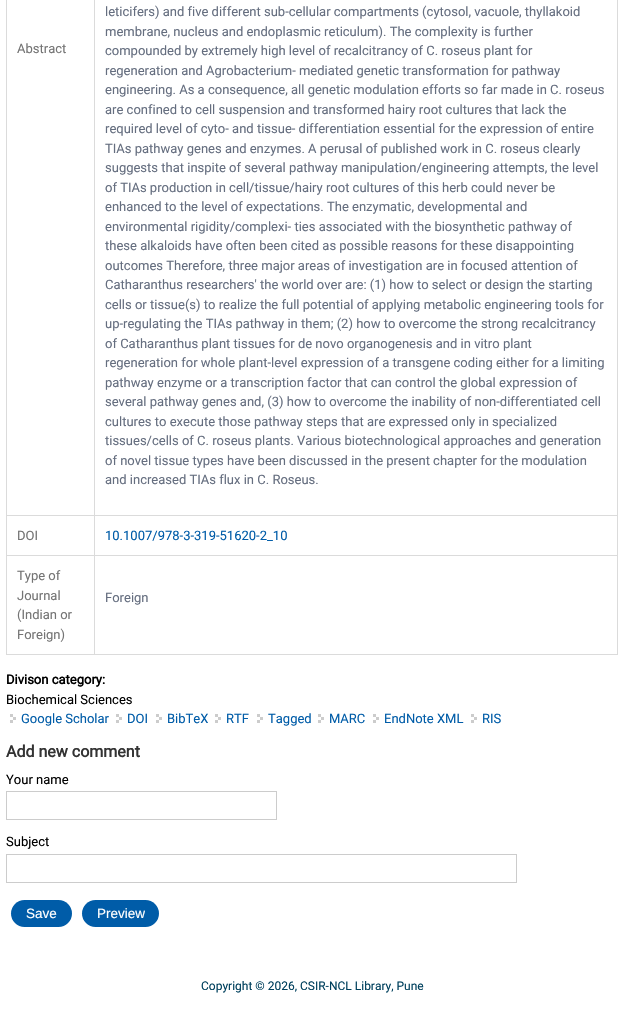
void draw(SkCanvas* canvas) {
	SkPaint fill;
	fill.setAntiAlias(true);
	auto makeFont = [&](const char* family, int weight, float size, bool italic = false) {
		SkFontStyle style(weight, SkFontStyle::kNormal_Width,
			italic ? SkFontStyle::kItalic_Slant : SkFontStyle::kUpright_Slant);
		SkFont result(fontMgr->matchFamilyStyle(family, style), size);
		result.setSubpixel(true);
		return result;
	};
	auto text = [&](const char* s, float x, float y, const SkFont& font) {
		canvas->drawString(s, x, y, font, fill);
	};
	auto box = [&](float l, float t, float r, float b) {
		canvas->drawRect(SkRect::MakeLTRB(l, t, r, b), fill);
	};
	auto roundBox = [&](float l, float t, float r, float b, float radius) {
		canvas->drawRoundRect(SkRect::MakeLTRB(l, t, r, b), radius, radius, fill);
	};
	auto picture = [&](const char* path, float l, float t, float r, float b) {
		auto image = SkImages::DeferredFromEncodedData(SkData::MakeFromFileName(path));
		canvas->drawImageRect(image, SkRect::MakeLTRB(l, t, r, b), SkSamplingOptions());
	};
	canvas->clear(0xFFFFFFFF);
	fill.setColor(0xFFDBDBDB);
	box(94, 515, 618, 516);
	box(94, 555, 618, 556);
	box(617, 555, 618, 655);
	box(94, 654, 618, 655);
	box(94, 555, 95, 655);
	box(6, 555, 95, 556);
	box(94, 515, 95, 556);
	box(6, 515, 95, 516);
	box(94, 0, 95, 516);
	box(6, 654, 95, 655);
	box(6, 555, 7, 655);
	box(6, 0, 7, 556);
	box(617, 0, 618, 556);
	picture("image0.png", 10, 714, 16, 723);
	picture("image0.png", 116, 714, 122, 723);
	picture("image0.png", 156, 714, 162, 723);
	picture("image0.png", 215, 714, 221, 723);
	picture("image0.png", 257, 714, 263, 723);
	picture("image0.png", 318, 714, 324, 723);
	picture("image0.png", 373, 714, 379, 723);
	picture("image0.png", 471, 714, 477, 723);
	fill.setStyle(SkPaint::kStroke_Style);
	fill.setStrokeWidth(1);
	fill.setColor(0xFFCCCCCC);
	canvas->drawRect(SkRect::MakeLTRB(6.5f, 791.5f, 276.5f, 819.5f), fill);
	canvas->drawRect(SkRect::MakeLTRB(6.5f, 854.5f, 516.5f, 882.5f), fill);
	fill.setStyle(SkPaint::kFill_Style);
	fill.setColor(0xFF005CA8);
	roundBox(11, 900, 72, 927, 13.5f);
	roundBox(82, 900, 159, 927, 13.5f);
	auto font1 = makeFont("Roboto", 400, 13);
	fill.setColor(0xFF747474);
	text("Abstract", 17, 53, font1);
	fill.setColor(0xFF656E7F);
	text("leticifers) and five different sub-cellular compartments (cytosol, vacuole, thyllakoid", 105, 16, font1);
	text("membrane, nucleus and endoplasmic reticulum). The complexity is further", 105, 36, font1);
	text("compounded by extremely high level of recalcitrancy of C. roseus plant for", 105, 55, font1);
	text("regeneration and Agrobacterium- mediated genetic transformation for pathway", 105, 75, font1);
	text("engineering. As a consequence, all genetic modulation efforts so far made in C. roseus", 105, 94, font1);
	text("are confined to cell suspension and transformed hairy root cultures that lack the", 105, 114, font1);
	text("required level of cyto- and tissue- differentiation essential for the expression of entire", 105, 133, font1);
	text("TIAs pathway genes and enzymes. A perusal of published work in C. roseus clearly", 105, 153, font1);
	text("suggests that inspite of several pathway manipulation/engineering attempts, the level", 105, 172, font1);
	text("of TIAs production in cell/tissue/hairy root cultures of this herb could never be", 105, 192, font1);
	text("enhanced to the level of expectations. The enzymatic, developmental and", 105, 211, font1);
	text("environmental rigidity/complexi- ties associated with the biosynthetic pathway of", 105, 231, font1);
	text("these alkaloids have often been cited as possible reasons for these disappointing", 105, 250, font1);
	text("outcomes Therefore, three major areas of investigation are in focused attention of", 105, 270, font1);
	text("Catharanthus researchers' the world over are: (1) how to select or design the starting", 105, 289, font1);
	text("cells or tissue(s) to realize the full potential of applying metabolic engineering tools for", 105, 309, font1);
	text("up-regulating the TIAs pathway in them; (2) how to overcome the strong recalcitrancy", 105, 328, font1);
	text("of Catharanthus plant tissues for de novo organogenesis and in vitro plant", 105, 348, font1);
	text("regeneration for whole plant-level expression of a transgene coding either for a limiting", 105, 367, font1);
	text("pathway enzyme or a transcription factor that can control the global expression of", 105, 387, font1);
	text("several pathway genes and, (3) how to overcome the inability of non-differentiated cell", 105, 406, font1);
	text("cultures to execute those pathway steps that are expressed only in specialized", 105, 426, font1);
	text("tissues/cells of C. roseus plants. Various biotechnological approaches and generation", 105, 445, font1);
	text("of novel tissue types have been discussed in the present chapter for the modulation", 105, 465, font1);
	text("and increased TIAs flux in C. Roseus.", 105, 484, font1);
	fill.setColor(0xFF747474);
	text("DOI", 17, 540, font1);
	fill.setColor(0xFF005CA8);
	text("10.1007/978-3-319-51620-2_10", 105, 540, font1);
	fill.setColor(0xFF747474);
	text("Type of", 17, 580, font1);
	text("Journal", 17, 600, font1);
	text("(Indian or", 17, 619, font1);
	text("Foreign)", 17, 639, font1);
	fill.setColor(0xFF656E7F);
	text("Foreign", 105, 602, font1);
	auto font2 = makeFont("Roboto", 700, 13);
	fill.setColor(0xFF000000);
	text("Divison category:", 6, 684, font2);
	text("Biochemical Sciences", 6, 704, font1);
	fill.setColor(0xFF005CA8);
	text("Google Scholar", 21, 723, font1);
	text("DOI", 127, 723, font1);
	text("BibTeX", 167, 723, font1);
	text("RTF", 226, 723, font1);
	text("Tagged", 268, 723, font1);
	text("MARC", 329, 723, font1);
	text("EndNote XML", 384, 723, font1);
	text("RIS", 482, 723, font1);
	auto font3 = makeFont("Roboto", 700, 16);
	fill.setColor(0xFF333333);
	text("Add new comment", 6, 757, font3);
	fill.setColor(0xFF000000);
	text("Your name", 6, 784, font1);
	text("Subject", 6, 846, font1);
	auto font4 = makeFont("Liberation Sans", 400, 13.5f);
	fill.setColor(0xFFFFFFFF);
	text("Save", 26, 918, font4);
	text("Preview", 97, 918, font4);
	auto font5 = makeFont("Roboto", 400, 12);
	fill.setColor(0xFF00405D);
	text("Copyright © 2026, CSIR-NCL Library, Pune", 201, 990, font5);
}
